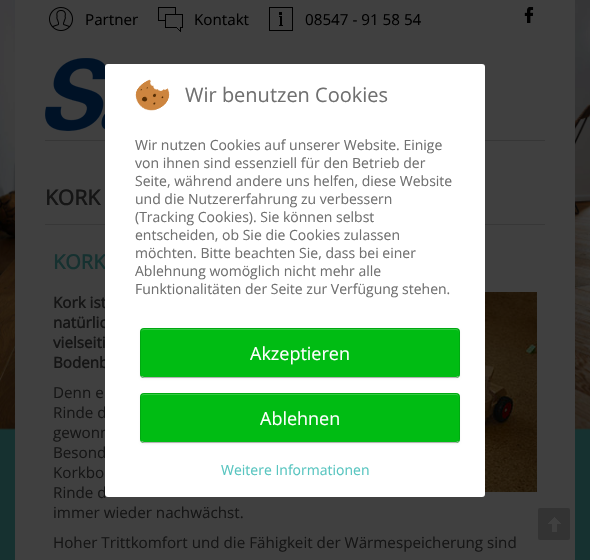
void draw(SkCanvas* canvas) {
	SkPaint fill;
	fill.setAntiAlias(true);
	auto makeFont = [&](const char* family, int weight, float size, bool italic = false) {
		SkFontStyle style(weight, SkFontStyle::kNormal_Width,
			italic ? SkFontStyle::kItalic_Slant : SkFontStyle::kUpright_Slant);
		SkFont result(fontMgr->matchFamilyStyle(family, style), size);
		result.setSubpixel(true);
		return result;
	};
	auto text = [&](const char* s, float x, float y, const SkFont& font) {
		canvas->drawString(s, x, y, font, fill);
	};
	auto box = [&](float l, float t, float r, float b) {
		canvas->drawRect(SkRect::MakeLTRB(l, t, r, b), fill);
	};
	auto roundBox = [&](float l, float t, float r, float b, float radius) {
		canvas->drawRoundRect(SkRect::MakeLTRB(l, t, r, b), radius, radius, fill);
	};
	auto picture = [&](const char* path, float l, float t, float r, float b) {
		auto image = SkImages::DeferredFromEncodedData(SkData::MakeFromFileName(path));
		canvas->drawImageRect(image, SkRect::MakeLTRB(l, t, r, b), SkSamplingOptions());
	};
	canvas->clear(0xFF163130);
	picture("image0.png", 0, 0, 590, 430);
	fill.setColor(0xFF404040);
	box(15, 0, 575, 560);
	picture("image1.png", 49, 7, 73, 31);
	picture("image2.png", 158, 7, 183, 32);
	picture("image3.png", 269, 7, 293, 31);
	picture("image4.png", 524, 7, 534, 23);
	fill.setColor(0xFF363636);
	box(45, 140, 545, 141);
	picture("image6.png", 45, 58, 106, 131);
	fill.setColor(0xFF373737);
	box(45, 224, 545, 225);
	picture("image7.png", 485, 292, 537, 492);
	fill.setColor(0x33000000);
	roundBox(538, 508, 570, 540, 2);
	picture("image8.png", 548, 517, 561, 532);
	auto font1 = makeFont("Open Sans", 400, 15.2f);
	fill.setColor(0xFF000000);
	text("Partner", 85, 25, font1);
	text("Kontakt", 194, 25, font1);
	text("08547 - 91 58 54", 305, 25, font1);
	auto font2 = makeFont("Open Sans", 700, 21);
	fill.setColor(0xFF151515);
	text("KORK", 45, 205, font2);
	auto font3 = makeFont("Open Sans", 700, 20);
	fill.setColor(0xFF163130);
	text("KORK", 53, 269, font3);
	auto font4 = makeFont("Open Sans", 700, 15.2f);
	fill.setColor(0xFF151515);
	text("Kork ist", 53, 308, font4);
	text("natürlic", 53, 328, font4);
	text("vielseiti", 53, 348, font4);
	text("Bodenb", 53, 368, font4);
	text("Denn e", 53, 398, font1);
	text("Rinde d", 53, 418, font1);
	text("gewonn", 53, 438, font1);
	text("Besond", 53, 458, font1);
	text("Korkbo", 53, 478, font1);
	text("Rinde d", 53, 498, font1);
	fill.setColor(0xFFFFFFFF);
	roundBox(105, 64, 485, 497, 3);
	picture("image5.png", 135, 79, 170, 111);
	auto font5 = makeFont("Open Sans", 400, 20);
	fill.setColor(0xFF707070);
	text("Wir benutzen Cookies", 185, 102, font5);
	auto font6 = makeFont("Open Sans", 400, 14);
	fill.setColor(0xFF58C5C0);
	text("Weitere Informationen", 221, 475, font6);
	fill.setColor(0x0D000000);
	fill.setMaskFilter(SkMaskFilter::MakeBlur(kNormal_SkBlurStyle, 1));
	canvas->drawRoundRect(SkRect::MakeLTRB(140, 394, 460, 444), 4, 4, fill);
	fill.setMaskFilter(nullptr);
	fill.setColor(0xFF00BC13);
	roundBox(140, 393, 460, 443, 4);
	fill.setStyle(SkPaint::kStroke_Style);
	fill.setStrokeWidth(1);
	fill.setColor(0xFFB3B3B3);
	canvas->drawPath(SkPathBuilder().moveTo(458.5f, 441.5f).lineTo(456, 442.5f).lineTo(144, 442.5f).lineTo(141.5f, 441.5f).detach(), fill);
	fill.setStyle(SkPaint::kFill_Style);
	fill.setColor(0xFF33C942);
	canvas->drawPath(SkPathBuilder().moveTo(144, 395).lineTo(456, 395).cubicTo(458, 395, 459, 396, 459, 398).lineTo(458, 395).lineTo(457, 394).lineTo(144, 394).cubicTo(142, 394, 141, 396, 141, 398).cubicTo(141, 396, 142, 395, 144, 395).close().detach(), fill);
	fill.setStyle(SkPaint::kStroke_Style);
	fill.setColor(0x1A000000);
	canvas->drawPath(SkPathBuilder().moveTo(141.5f, 441.5f).cubicTo(141, 441, 140.5f, 440, 140.5f, 439).lineTo(140.5f, 397).cubicTo(140.5f, 396, 141, 395, 141.5f, 394.5f).cubicTo(142, 394, 143, 393.5f, 144, 393.5f).lineTo(456, 393.5f).cubicTo(457, 393.5f, 458, 394, 458.5f, 394.5f).cubicTo(459, 395, 459.5f, 396, 459.5f, 397).lineTo(459.5f, 439).cubicTo(459.5f, 440, 459, 441, 458.5f, 441.5f).detach(), fill);
	auto font7 = makeFont("Open Sans", 400, 18);
	fill.setStyle(SkPaint::kFill_Style);
	fill.setColor(0xFFFFFFFF);
	text("Ablehnen", 260, 425, font7);
	fill.setColor(0x0D000000);
	fill.setMaskFilter(SkMaskFilter::MakeBlur(kNormal_SkBlurStyle, 1));
	canvas->drawRoundRect(SkRect::MakeLTRB(140, 329, 460, 379), 4, 4, fill);
	fill.setMaskFilter(nullptr);
	fill.setColor(0xFF00BC13);
	roundBox(140, 328, 460, 378, 4);
	fill.setStyle(SkPaint::kStroke_Style);
	fill.setColor(0xFFB3B3B3);
	canvas->drawPath(SkPathBuilder().moveTo(458.5f, 376.5f).lineTo(456, 377.5f).lineTo(144, 377.5f).lineTo(141.5f, 376.5f).detach(), fill);
	fill.setStyle(SkPaint::kFill_Style);
	fill.setColor(0xFF33C942);
	canvas->drawPath(SkPathBuilder().moveTo(144, 330).lineTo(456, 330).cubicTo(458, 330, 459, 331, 459, 333).lineTo(458, 330).lineTo(457, 329).lineTo(144, 329).cubicTo(142, 329, 141, 331, 141, 333).cubicTo(141, 331, 142, 330, 144, 330).close().detach(), fill);
	fill.setStyle(SkPaint::kStroke_Style);
	fill.setColor(0x1A000000);
	canvas->drawPath(SkPathBuilder().moveTo(141.5f, 376.5f).cubicTo(141, 376, 140.5f, 375, 140.5f, 374).lineTo(140.5f, 332).cubicTo(140.5f, 331, 141, 330, 141.5f, 329.5f).cubicTo(142, 329, 143, 328.5f, 144, 328.5f).lineTo(456, 328.5f).cubicTo(457, 328.5f, 458, 329, 458.5f, 329.5f).cubicTo(459, 330, 459.5f, 331, 459.5f, 332).lineTo(459.5f, 374).cubicTo(459.5f, 375, 459, 376, 458.5f, 376.5f).detach(), fill);
	fill.setStyle(SkPaint::kFill_Style);
	fill.setColor(0xFFFFFFFF);
	text("Akzeptieren", 250, 360, font7);
	fill.setColor(0xFF707070);
	text("Funktionalitäten der Seite zur Verfügung stehen.", 135, 294, font6);
	text("Ablehnung womöglich nicht mehr alle", 135, 276, font6);
	text("möchten. Bitte beachten Sie, dass bei einer", 135, 258, font6);
	text("entscheiden, ob Sie die Cookies zulassen", 135, 240, font6);
	text("(Tracking Cookies). Sie können selbst", 135, 222, font6);
	text("und die Nutzererfahrung zu verbessern", 135, 204, font6);
	text("Seite, während andere uns helfen, diese Website", 135, 186, font6);
	text("von ihnen sind essenziell für den Betrieb der", 135, 168, font6);
	text("Wir nutzen Cookies auf unserer Website. Einige", 135, 150, font6);
	fill.setColor(0xFF151515);
	text("immer wieder nachwächst.", 53, 518, font1);
	text("Hoher Trittkomfort und die Fähigkeit der Wärmespeicherung sind", 53, 548, font1);
}
